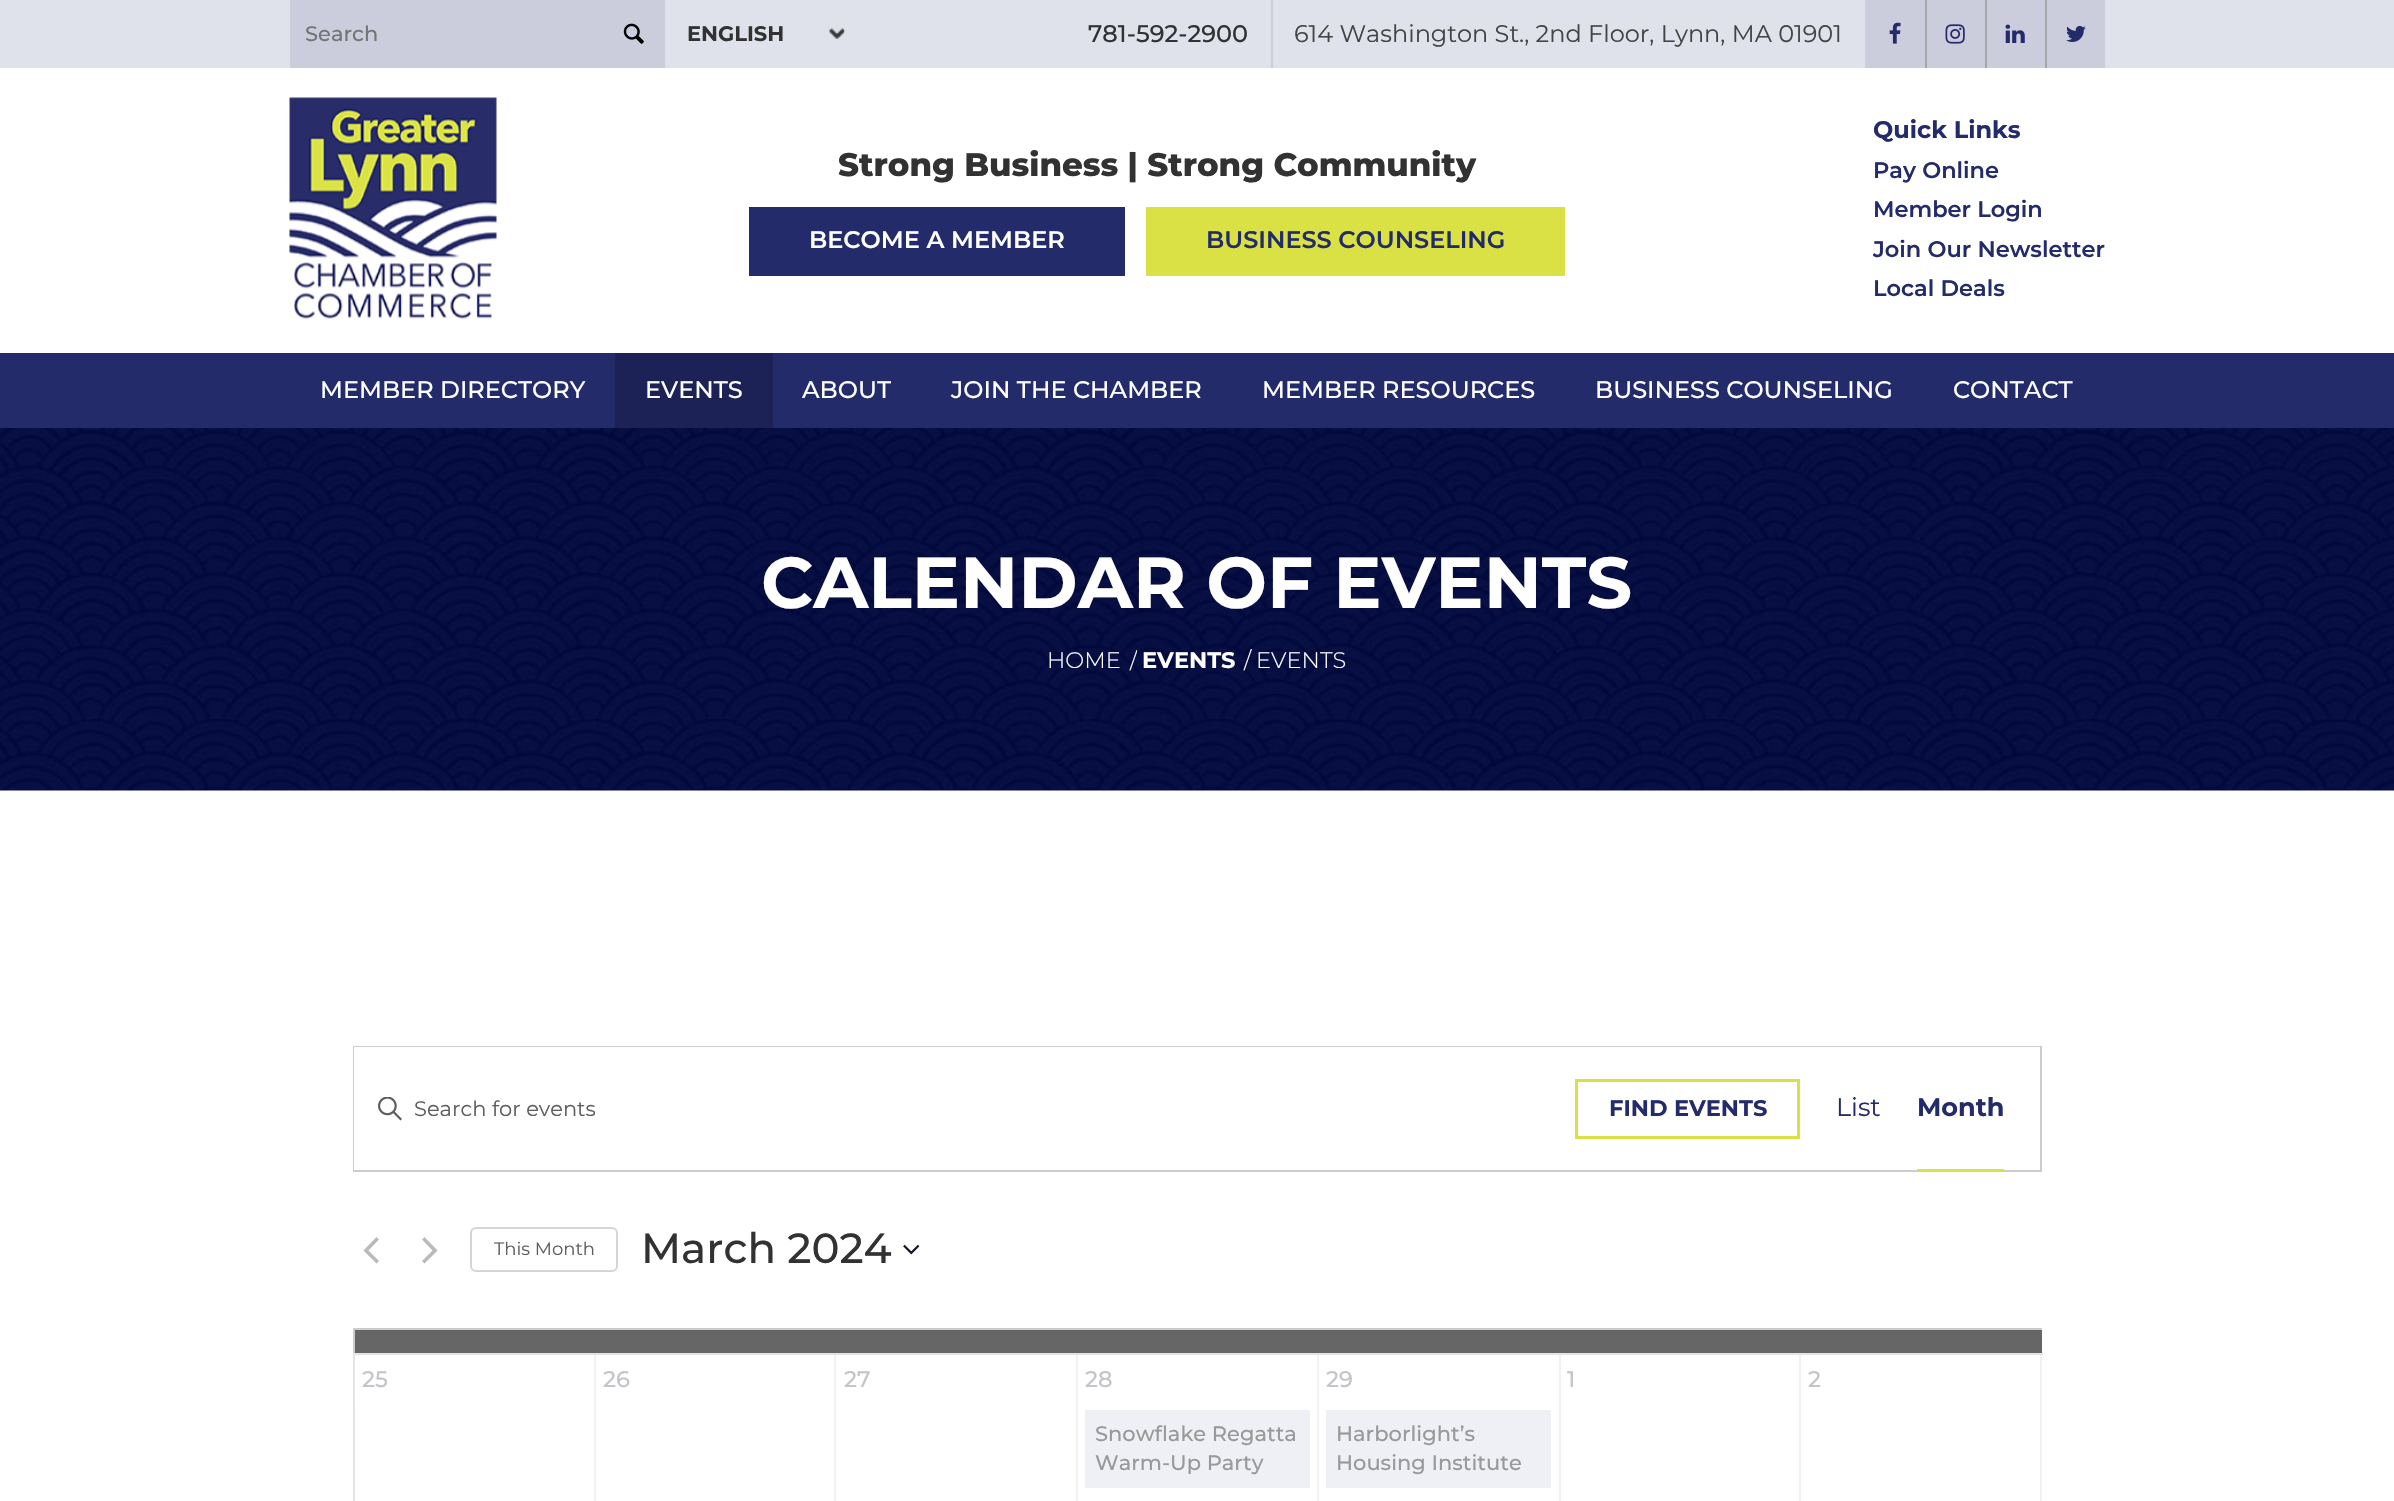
void draw(SkCanvas* canvas) {
	SkPaint fill;
	fill.setAntiAlias(true);
	auto makeFont = [&](const char* family, int weight, float size, bool italic = false) {
		SkFontStyle style(weight, SkFontStyle::kNormal_Width,
			italic ? SkFontStyle::kItalic_Slant : SkFontStyle::kUpright_Slant);
		SkFont result(fontMgr->matchFamilyStyle(family, style), size);
		result.setSubpixel(true);
		return result;
	};
	auto text = [&](const char* s, float x, float y, const SkFont& font) {
		canvas->drawString(s, x, y, font, fill);
	};
	auto box = [&](float l, float t, float r, float b) {
		canvas->drawRect(SkRect::MakeLTRB(l, t, r, b), fill);
	};
	auto picture = [&](const char* path, float l, float t, float r, float b) {
		auto image = SkImages::DeferredFromEncodedData(SkData::MakeFromFileName(path));
		canvas->drawImageRect(image, SkRect::MakeLTRB(l, t, r, b), SkSamplingOptions());
	};
	canvas->clear(0xFFFFFFFF);
	fill.setColor(0xFFDFE1EB);
	box(0, 0, 2394, 68);
	fill.setColor(0xFFCCCDDC);
	box(290, 0, 665, 68);
	picture("image0.png", 623, 23, 644, 44);
	picture("image1.png", 829, 28, 845, 39);
	box(1271, 0, 1273, 68);
	box(1865, 0, 1925, 68);
	picture("image2.png", 1889, 22, 1901, 44);
	box(1927, 0, 1985, 68);
	fill.setColor(0xFFA7A7A7);
	box(1925, 0, 1927, 68);
	picture("image3.png", 1945, 24, 1965, 44);
	fill.setColor(0xFFCCCDDC);
	box(1987, 0, 2045, 68);
	fill.setColor(0xFFA7A7A7);
	box(1985, 0, 1987, 68);
	picture("image4.png", 2005, 24, 2025, 43);
	fill.setColor(0xFFCCCDDC);
	box(2047, 0, 2105, 68);
	fill.setColor(0xFFA7A7A7);
	box(2045, 0, 2047, 68);
	picture("image5.png", 2066, 25, 2086, 42);
	fill.setColor(0xFF232B6A);
	box(749, 207, 1125, 276);
	fill.setColor(0xFFDAE145);
	box(1146, 207, 1565, 276);
	picture("image6.png", 289, 97, 497, 319);
	fill.setColor(0xFF232B6A);
	box(0, 353, 2394, 428);
	fill.setColor(0xFF1C2255);
	box(615, 353, 773, 428);
	picture("image7.png", 0, 428, 2394, 791);
	fill.setStyle(SkPaint::kStroke_Style);
	fill.setStrokeWidth(2);
	fill.setColor(0xFFCCCCCC);
	canvas->drawRect(SkRect::MakeLTRB(354, 1047, 2041, 1171), fill);
	fill.setStyle(SkPaint::kFill_Style);
	fill.setColor(0xFFFFFFFF);
	box(354, 1047, 1800, 1170);
	picture("image8.png", 378, 1097, 402, 1121);
	fill.setStyle(SkPaint::kStroke_Style);
	fill.setStrokeWidth(3);
	fill.setColor(0xFFDAE145);
	canvas->drawRect(SkRect::MakeLTRB(1576.5f, 1080.5f, 1798.5f, 1137.5f), fill);
	fill.setStyle(SkPaint::kFill_Style);
	fill.setColor(0xFFFFFFFF);
	box(1800, 1047, 2040, 1048);
	fill.setColor(0xFFDAE145);
	box(1917, 1169, 2004, 1172);
	fill.setColor(0xFFBABABA);
	canvas->drawPath(SkPathBuilder().moveTo(379, 1261).lineTo(376.5f, 1263.5f).lineTo(363.5f, 1250.5f).lineTo(376.5f, 1237).lineTo(379, 1239.5f).lineTo(368.5f, 1250.5f).close().detach(), fill);
	canvas->drawPath(SkPathBuilder().moveTo(422, 1239.5f).lineTo(424.5f, 1237).lineTo(437.5f, 1250.5f).lineTo(424.5f, 1263.5f).lineTo(422, 1261).lineTo(432.5f, 1250.5f).close().detach(), fill);
	fill.setStyle(SkPaint::kStroke_Style);
	fill.setStrokeWidth(2);
	fill.setColor(0xFFD5D5D5);
	canvas->drawRoundRect(SkRect::MakeLTRB(471, 1228, 617, 1271), 5, 5, fill);
	picture("image9.png", 903, 1244, 920, 1255);
	fill.setStyle(SkPaint::kFill_Style);
	fill.setColor(0xFF666666);
	box(355, 1330, 2042, 1353);
	fill.setColor(0xFFCCCCCC);
	box(353, 1328, 2042, 1330);
	box(353, 1328, 355, 1353);
	fill.setColor(0xFFE4E4E4);
	box(353, 1353, 2043, 1355);
	box(353, 1355, 355, 1501);
	fill.setColor(0xFFE8E8E8);
	box(354, 1355, 355, 1403);
	fill.setColor(0xFFF2F2F2);
	box(594, 1355, 596, 1501);
	box(834, 1355, 836, 1501);
	box(1076, 1355, 1078, 1501);
	box(1317, 1355, 1319, 1501);
	fill.setColor(0xFFEFF0F5);
	box(1085, 1410, 1310, 1488);
	fill.setColor(0xFFF2F2F2);
	box(1559, 1355, 1561, 1501);
	fill.setColor(0xFFEFF0F5);
	box(1326, 1410, 1551, 1488);
	fill.setColor(0xFFF2F2F2);
	box(1799, 1355, 1801, 1501);
	box(2040, 1355, 2042, 1501);
	auto font1 = makeFont("Montserrat", 500, 21);
	fill.setColor(0xFF757575);
	text("Search", 305, 41, font1);
	auto font2 = makeFont("Montserrat", 700, 21);
	fill.setColor(0xFF323232);
	text("ENGLISH", 687, 41, font2);
	auto font3 = makeFont("Montserrat", 500, 24);
	text("781-592-2900", 1088, 42, font3);
	auto font4 = makeFont("Montserrat", 400, 24);
	fill.setColor(0xFF444444);
	text("614 Washington St., 2nd Floor, Lynn, MA 01901", 1294, 42, font4);
	auto font5 = makeFont("Montserrat", 800, 32.4f);
	fill.setColor(0xFF323232);
	text("Strong Business | Strong Community", 838, 176, font5);
	auto font6 = makeFont("Montserrat", 600, 24);
	fill.setColor(0xFFFFFFFF);
	text("BECOME A MEMBER", 809, 248, font6);
	fill.setColor(0xFF232B6A);
	text("BUSINESS COUNSELING", 1206, 248, font6);
	auto font7 = makeFont("Montserrat", 700, 24);
	text("Quick Links", 1873, 138, font7);
	auto font8 = makeFont("Montserrat", 600, 22.5f);
	text("Pay Online", 1873, 178, font8);
	text("Member Login", 1873, 217, font8);
	text("Join Our Newsletter", 1873, 257, font8);
	text("Local Deals", 1873, 296, font8);
	fill.setColor(0xFFFFFFFF);
	text("MEMBER DIRECTORY", 320, 398, font3);
	text("EVENTS", 645, 398, font3);
	text("ABOUT", 802, 398, font3);
	text("JOIN THE CHAMBER", 951, 398, font3);
	text("MEMBER RESOURCES", 1262, 398, font3);
	text("BUSINESS COUNSELING", 1595, 398, font3);
	text("CONTACT", 1953, 398, font3);
	auto font9 = makeFont("Montserrat", 700, 72);
	text("CALENDAR OF EVENTS", 761, 608, font9);
	auto font10 = makeFont("Montserrat", 300, 22.5f);
	text("HOME", 1047, 668, font10);
	canvas->save();
	canvas->clipRect(SkRect::MakeLTRB(1125, 650, 1137, 672));
	text("/", 1130, 668, font10);
	canvas->restore();
	auto font11 = makeFont("Montserrat", 700, 22.5f);
	text("EVENTS", 1142, 668, font11);
	text("/", 1244, 668, font10);
	text("EVENTS", 1256, 668, font10);
	auto font12 = makeFont("Montserrat", 400, 21);
	fill.setColor(0xFF5D5D5D);
	text("Search for events", 414, 1116, font12);
	fill.setColor(0xFF232B6A);
	text("FIND EVENTS", 1609, 1116, font11);
	auto font13 = makeFont("Montserrat", 400, 25.5f);
	text("List", 1836, 1116, font13);
	auto font14 = makeFont("Montserrat", 700, 25.5f);
	text("Month", 1917, 1116, font14);
	auto font15 = makeFont("Montserrat", 400, 18);
	fill.setColor(0xFF5D5D5D);
	text("This Month", 494, 1255, font15);
	auto font16 = makeFont("Montserrat", 500, 42);
	fill.setColor(0xFF323232);
	text("March 2024", 641, 1263, font16);
	auto font17 = makeFont("Montserrat", 500, 22.5f);
	fill.setColor(0xFFC4C5C9);
	text("25", 362, 1387, font17);
	text("26", 603, 1387, font17);
	text("27", 844, 1387, font17);
	text("28", 1085, 1387, font17);
	fill.setColor(0xFF999999);
	text("Snowflake Regatta", 1095, 1441, font1);
	text("Warm-Up Party", 1095, 1470, font1);
	fill.setColor(0xFFC4C5C9);
	text("29", 1326, 1387, font17);
	fill.setColor(0xFF999999);
	text("Harborlight’s", 1336, 1441, font1);
	text("Housing Institute", 1336, 1470, font1);
	fill.setColor(0xFFC4C5C9);
	text("1", 1567, 1387, font17);
	text("2", 1808, 1387, font17);
}
